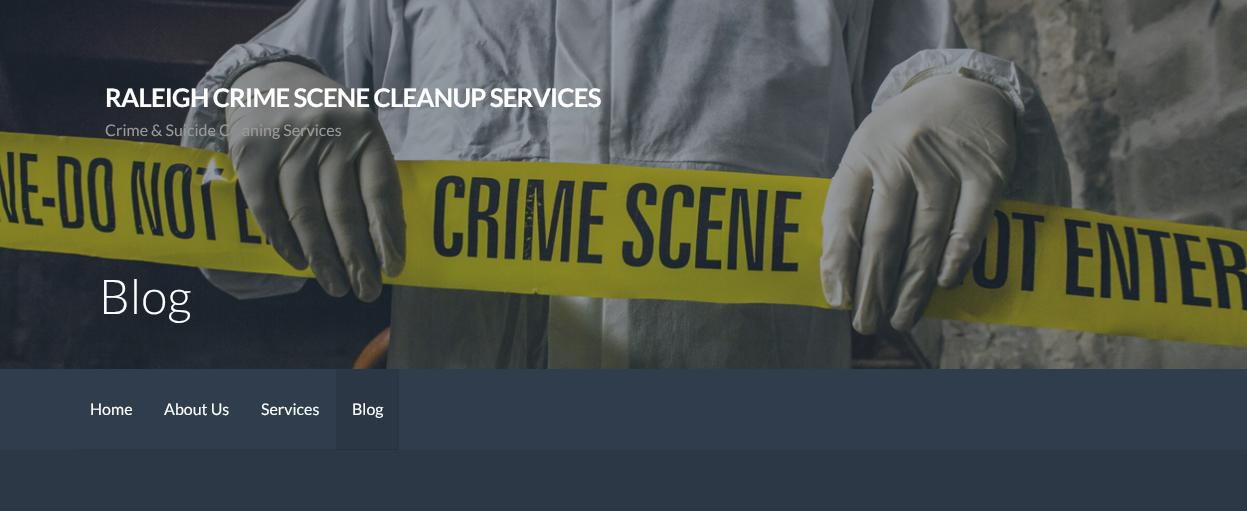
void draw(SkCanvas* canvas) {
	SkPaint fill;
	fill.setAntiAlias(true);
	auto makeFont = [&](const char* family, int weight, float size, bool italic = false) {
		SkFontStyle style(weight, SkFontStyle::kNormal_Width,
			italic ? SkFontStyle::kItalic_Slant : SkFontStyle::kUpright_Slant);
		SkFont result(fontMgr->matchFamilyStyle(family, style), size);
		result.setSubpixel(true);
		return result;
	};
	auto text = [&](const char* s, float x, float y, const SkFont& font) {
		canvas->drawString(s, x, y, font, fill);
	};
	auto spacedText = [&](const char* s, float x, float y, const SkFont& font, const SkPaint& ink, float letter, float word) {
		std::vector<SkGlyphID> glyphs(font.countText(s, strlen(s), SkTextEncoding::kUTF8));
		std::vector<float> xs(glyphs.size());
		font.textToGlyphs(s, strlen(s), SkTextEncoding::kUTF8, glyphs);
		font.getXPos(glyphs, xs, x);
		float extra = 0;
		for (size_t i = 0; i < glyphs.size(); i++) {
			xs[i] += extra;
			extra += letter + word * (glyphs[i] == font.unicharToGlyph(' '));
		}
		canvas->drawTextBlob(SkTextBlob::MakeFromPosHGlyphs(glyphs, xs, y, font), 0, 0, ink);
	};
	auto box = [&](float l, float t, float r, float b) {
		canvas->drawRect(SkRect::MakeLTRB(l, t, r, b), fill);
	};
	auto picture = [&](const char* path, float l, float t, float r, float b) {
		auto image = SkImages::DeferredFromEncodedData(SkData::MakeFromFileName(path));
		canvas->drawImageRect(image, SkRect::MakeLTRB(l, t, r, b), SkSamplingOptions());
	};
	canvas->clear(0xFF2C3845);
	picture("image0.png", 0, 0, 1247, 369);
	fill.setColor(0xFF303D4C);
	box(0, 369, 1247, 450);
	fill.setColor(0xFF2B3744);
	box(74, 449, 336, 450);
	box(336, 369, 399, 449);
	fill.setColor(0xFF27323D);
	box(336, 449, 399, 450);
	auto font1 = makeFont("Lato", 700, 25.6f);
	fill.setColor(0xFFFFFFFF);
	spacedText("RALEIGH CRIME SCENE CLEANUP SERVICES", 105, 107, font1, fill, -0.75f, 0);
	auto font2 = makeFont("Lato", 400, 16);
	fill.setColor(0xFF999999);
	text("Crime & Suicide C", 105, 136, font2);
	text("aning Services", 242, 136, font2);
	auto font3 = makeFont("Lato", 300, 48);
	fill.setColor(0xFFFFFFFF);
	text("Blog", 99, 314, font3);
	text("Home", 90, 415, font2);
	text("About Us", 164, 415, font2);
	text("Services", 261, 415, font2);
	text("Blog", 352, 415, font2);
}
